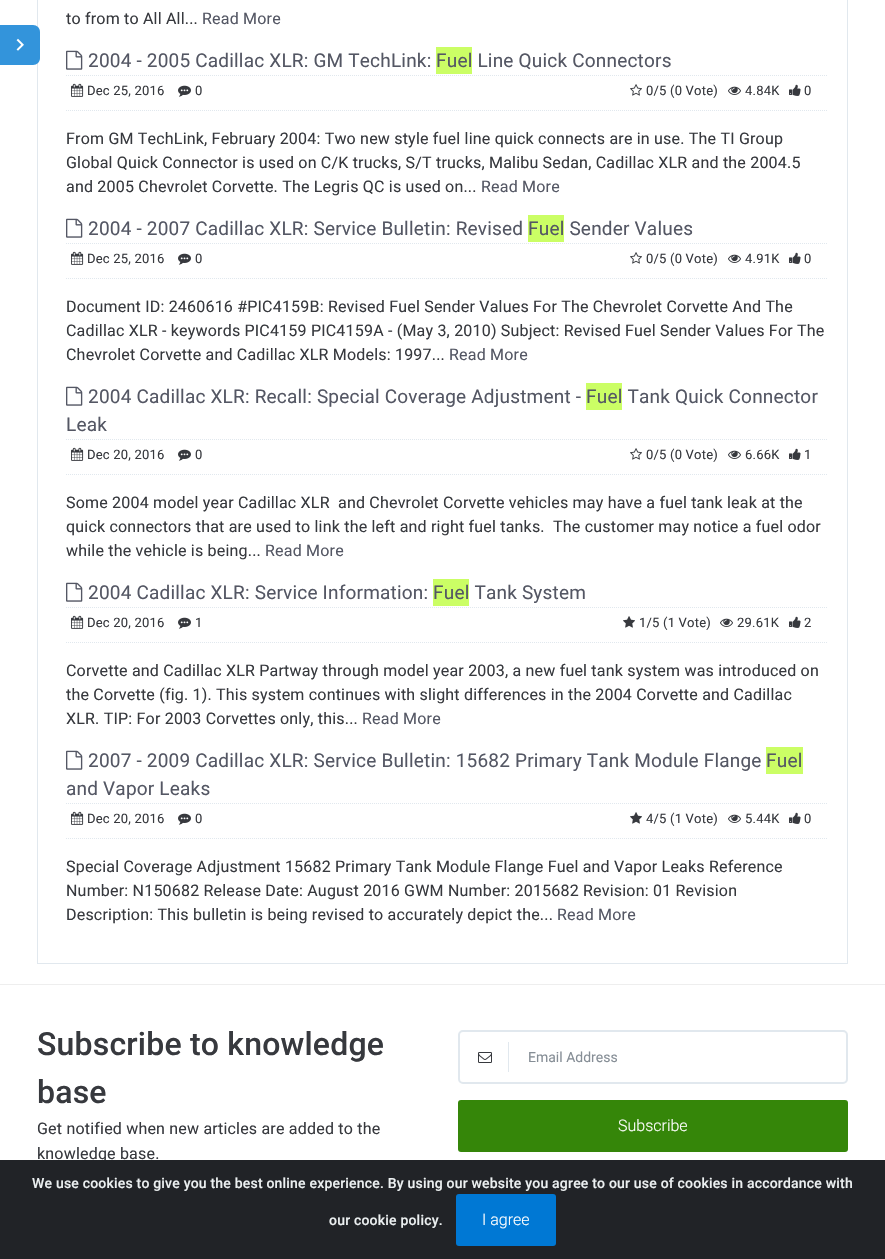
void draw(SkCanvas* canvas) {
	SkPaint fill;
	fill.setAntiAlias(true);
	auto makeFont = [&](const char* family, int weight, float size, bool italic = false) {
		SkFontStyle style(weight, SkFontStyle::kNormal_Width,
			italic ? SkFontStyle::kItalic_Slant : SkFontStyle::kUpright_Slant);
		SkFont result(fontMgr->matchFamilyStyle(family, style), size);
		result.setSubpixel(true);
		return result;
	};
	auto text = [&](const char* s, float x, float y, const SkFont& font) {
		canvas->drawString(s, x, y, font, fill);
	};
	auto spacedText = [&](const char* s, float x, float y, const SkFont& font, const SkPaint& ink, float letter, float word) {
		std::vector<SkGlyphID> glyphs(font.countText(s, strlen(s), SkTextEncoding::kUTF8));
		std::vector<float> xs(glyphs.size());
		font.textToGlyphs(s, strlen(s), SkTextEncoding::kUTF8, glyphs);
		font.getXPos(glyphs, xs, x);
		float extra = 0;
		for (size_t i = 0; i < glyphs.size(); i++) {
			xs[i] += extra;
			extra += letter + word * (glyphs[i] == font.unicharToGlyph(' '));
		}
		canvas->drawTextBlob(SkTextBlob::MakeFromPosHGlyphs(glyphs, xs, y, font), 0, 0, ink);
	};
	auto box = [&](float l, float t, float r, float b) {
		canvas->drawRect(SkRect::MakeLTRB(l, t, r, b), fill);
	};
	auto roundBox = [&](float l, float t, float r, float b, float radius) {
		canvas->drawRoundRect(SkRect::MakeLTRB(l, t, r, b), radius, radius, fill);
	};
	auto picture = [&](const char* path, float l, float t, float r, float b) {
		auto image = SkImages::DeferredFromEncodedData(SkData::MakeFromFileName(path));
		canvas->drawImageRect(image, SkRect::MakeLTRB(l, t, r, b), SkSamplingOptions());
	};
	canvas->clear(0xFFFFFFFF);
	fill.setColor(0xFFE1E8EE);
	box(847, 0, 848, 964);
	box(37, 963, 848, 964);
	box(37, 0, 38, 964);
	fill.setColor(0xFF3394DB);
	canvas->drawPath(SkPathBuilder().moveTo(0, 25).lineTo(33, 25).cubicTo(37, 25, 40, 28, 40, 32).lineTo(40, 58).cubicTo(40, 62, 37, 65, 33, 65).lineTo(0, 65).close().detach(), fill);
	picture("image0.png", 16, 38, 24, 51);
	picture("image1.png", 66, 50, 83, 70);
	fill.setColor(0xFFCBFE65);
	box(436, 47, 472, 74);
	fill.setStyle(SkPaint::kStroke_Style);
	fill.setStrokeWidth(1);
	fill.setColor(0xFFE1E8EE);
	fill.setPathEffect(SkDashPathEffect::Make({{1, 1}}, 0));
	canvas->drawPath(SkPathBuilder().moveTo(66, 75.5f).lineTo(827, 75.5f).detach(), fill);
	fill.setPathEffect(nullptr);
	fill.setPathEffect(SkDashPathEffect::Make({{1, 1}}, 0));
	canvas->drawPath(SkPathBuilder().moveTo(66, 110.5f).lineTo(827, 110.5f).detach(), fill);
	fill.setPathEffect(nullptr);
	picture("image2.png", 71, 83, 84, 97);
	picture("image3.png", 178, 85, 191, 97);
	picture("image4.png", 630, 84, 642, 96);
	picture("image5.png", 728, 86, 741, 95);
	picture("image6.png", 789, 84, 801, 96);
	picture("image1.png", 66, 218, 83, 238);
	fill.setStyle(SkPaint::kFill_Style);
	fill.setColor(0xFFCBFE65);
	box(528, 215, 564, 242);
	fill.setStyle(SkPaint::kStroke_Style);
	fill.setColor(0xFFE1E8EE);
	fill.setPathEffect(SkDashPathEffect::Make({{1, 1}}, 0));
	canvas->drawPath(SkPathBuilder().moveTo(66, 243.5f).lineTo(827, 243.5f).detach(), fill);
	fill.setPathEffect(nullptr);
	fill.setPathEffect(SkDashPathEffect::Make({{1, 1}}, 0));
	canvas->drawPath(SkPathBuilder().moveTo(66, 278.5f).lineTo(827, 278.5f).detach(), fill);
	fill.setPathEffect(nullptr);
	picture("image2.png", 71, 251, 84, 265);
	picture("image3.png", 178, 253, 191, 265);
	picture("image4.png", 630, 252, 642, 264);
	picture("image5.png", 728, 254, 741, 263);
	picture("image6.png", 789, 252, 801, 264);
	picture("image1.png", 66, 386, 83, 406);
	fill.setStyle(SkPaint::kFill_Style);
	fill.setColor(0xFFCBFE65);
	box(586, 383, 622, 410);
	fill.setStyle(SkPaint::kStroke_Style);
	fill.setColor(0xFFE1E8EE);
	fill.setPathEffect(SkDashPathEffect::Make({{1, 1}}, 0));
	canvas->drawPath(SkPathBuilder().moveTo(66, 439.5f).lineTo(827, 439.5f).detach(), fill);
	fill.setPathEffect(nullptr);
	fill.setPathEffect(SkDashPathEffect::Make({{1, 1}}, 0));
	canvas->drawPath(SkPathBuilder().moveTo(66, 474.5f).lineTo(827, 474.5f).detach(), fill);
	fill.setPathEffect(nullptr);
	picture("image2.png", 71, 447, 84, 461);
	picture("image3.png", 178, 449, 191, 461);
	picture("image4.png", 630, 448, 642, 460);
	picture("image5.png", 728, 450, 741, 459);
	picture("image6.png", 789, 448, 801, 460);
	picture("image1.png", 66, 582, 83, 602);
	fill.setStyle(SkPaint::kFill_Style);
	fill.setColor(0xFFCBFE65);
	box(433, 579, 469, 606);
	fill.setStyle(SkPaint::kStroke_Style);
	fill.setColor(0xFFE1E8EE);
	fill.setPathEffect(SkDashPathEffect::Make({{1, 1}}, 0));
	canvas->drawPath(SkPathBuilder().moveTo(66, 607.5f).lineTo(827, 607.5f).detach(), fill);
	fill.setPathEffect(nullptr);
	fill.setPathEffect(SkDashPathEffect::Make({{1, 1}}, 0));
	canvas->drawPath(SkPathBuilder().moveTo(66, 642.5f).lineTo(827, 642.5f).detach(), fill);
	fill.setPathEffect(nullptr);
	picture("image2.png", 71, 615, 84, 629);
	picture("image3.png", 178, 617, 191, 629);
	picture("image7.png", 623, 616, 635, 628);
	picture("image5.png", 720, 618, 733, 627);
	picture("image6.png", 789, 616, 801, 628);
	picture("image1.png", 66, 750, 83, 770);
	fill.setStyle(SkPaint::kFill_Style);
	fill.setColor(0xFFCBFE65);
	box(766, 747, 803, 774);
	fill.setStyle(SkPaint::kStroke_Style);
	fill.setColor(0xFFE1E8EE);
	fill.setPathEffect(SkDashPathEffect::Make({{1, 1}}, 0));
	canvas->drawPath(SkPathBuilder().moveTo(66, 803.5f).lineTo(827, 803.5f).detach(), fill);
	fill.setPathEffect(nullptr);
	fill.setPathEffect(SkDashPathEffect::Make({{1, 1}}, 0));
	canvas->drawPath(SkPathBuilder().moveTo(66, 838.5f).lineTo(827, 838.5f).detach(), fill);
	fill.setPathEffect(nullptr);
	picture("image2.png", 71, 811, 84, 825);
	picture("image3.png", 178, 813, 191, 825);
	picture("image7.png", 630, 812, 642, 824);
	picture("image5.png", 728, 814, 741, 823);
	picture("image6.png", 789, 812, 801, 824);
	fill.setStyle(SkPaint::kFill_Style);
	fill.setColor(0xFFEEEEEE);
	box(0, 984, 885, 985);
	fill.setStyle(SkPaint::kStroke_Style);
	fill.setStrokeWidth(2);
	fill.setColor(0xFFE1E8EE);
	canvas->drawRoundRect(SkRect::MakeLTRB(459, 1031, 847, 1083), 4, 4, fill);
	picture("image8.png", 478, 1052, 492, 1063);
	fill.setStyle(SkPaint::kFill_Style);
	box(508, 1042, 509, 1072);
	fill.setColor(0xFF358609);
	roundBox(458, 1100, 848, 1152, 3);
	auto font1 = makeFont("Roboto", 400, 16);
	fill.setColor(0xFF37393E);
	spacedText("to from to All All...", 66, 24, font1, fill, 0.2f, 0);
	fill.setColor(0xFF545764);
	spacedText("Read More", 202, 24, font1, fill, 0.2f, 0);
	auto font2 = makeFont("Roboto", 400, 19);
	spacedText("2004 - 2005 Cadillac XLR: GM TechLink:", 88, 67, font2, fill, 0.2f, 0);
	spacedText("Fuel Line Quick Connectors", 436, 67, font2, fill, 0.2f, 0);
	auto font3 = makeFont("Roboto", 400, 13);
	fill.setColor(0xFF37393E);
	spacedText("Dec 25, 2016", 87, 95, font3, fill, 0.2f, 0);
	spacedText("0", 195, 95, font3, fill, 0.2f, 0);
	spacedText("0/5 (0 Vote)", 646, 95, font3, fill, 0.2f, 0);
	spacedText("4.84K", 745, 95, font3, fill, 0.2f, 0);
	spacedText("0", 804, 95, font3, fill, 0.2f, 0);
	spacedText("From GM TechLink, February 2004: Two new style fuel line quick connects are in use. The TI Group", 66, 144, font1, fill, 0.2f, 0);
	spacedText("Global Quick Connector is used on C/K trucks, S/T trucks, Malibu Sedan, Cadillac XLR and the 2004.5", 66, 168, font1, fill, 0.2f, 0);
	spacedText("and 2005 Chevrolet Corvette. The Legris QC is used on...", 66, 192, font1, fill, 0.2f, 0);
	fill.setColor(0xFF545764);
	spacedText("Read More", 481, 192, font1, fill, 0.2f, 0);
	spacedText("2004 - 2007 Cadillac XLR: Service Bulletin: Revised", 88, 235, font2, fill, 0.2f, 0);
	spacedText("Fuel Sender Values", 528, 235, font2, fill, 0.2f, 0);
	fill.setColor(0xFF37393E);
	spacedText("Dec 25, 2016", 87, 263, font3, fill, 0.2f, 0);
	spacedText("0", 195, 263, font3, fill, 0.2f, 0);
	spacedText("0/5 (0 Vote)", 646, 263, font3, fill, 0.2f, 0);
	spacedText("4.91K", 745, 263, font3, fill, 0.2f, 0);
	spacedText("0", 804, 263, font3, fill, 0.2f, 0);
	spacedText("Document ID: 2460616 #PIC4159B: Revised Fuel Sender Values For The Chevrolet Corvette And The", 66, 312, font1, fill, 0.2f, 0);
	spacedText("Cadillac XLR - keywords PIC4159 PIC4159A - (May 3, 2010) Subject: Revised Fuel Sender Values For The", 66, 336, font1, fill, 0.2f, 0);
	spacedText("Chevrolet Corvette and Cadillac XLR Models: 1997...", 66, 360, font1, fill, 0.2f, 0);
	fill.setColor(0xFF545764);
	spacedText("Read More", 449, 360, font1, fill, 0.2f, 0);
	spacedText("2004 Cadillac XLR: Recall: Special Coverage Adjustment -", 88, 403, font2, fill, 0.2f, 0);
	spacedText("Fuel Tank Quick Connector", 586, 403, font2, fill, 0.2f, 0);
	spacedText("Leak", 66, 431, font2, fill, 0.2f, 0);
	fill.setColor(0xFF37393E);
	spacedText("Dec 20, 2016", 87, 459, font3, fill, 0.2f, 0);
	spacedText("0", 195, 459, font3, fill, 0.2f, 0);
	spacedText("0/5 (0 Vote)", 646, 459, font3, fill, 0.2f, 0);
	spacedText("6.66K", 745, 459, font3, fill, 0.2f, 0);
	spacedText("1", 804, 459, font3, fill, 0.2f, 0);
	spacedText("Some 2004 model year Cadillac XLR  and Chevrolet Corvette vehicles may have a fuel tank leak at the", 66, 508, font1, fill, 0.2f, 0);
	spacedText("quick connectors that are used to link the left and right fuel tanks.  The customer may notice a fuel odor", 66, 532, font1, fill, 0.2f, 0);
	spacedText("while the vehicle is being...", 66, 556, font1, fill, 0.2f, 0);
	fill.setColor(0xFF545764);
	spacedText("Read More", 265, 556, font1, fill, 0.2f, 0);
	spacedText("2004 Cadillac XLR: Service Information:", 88, 599, font2, fill, 0.2f, 0);
	spacedText("Fuel Tank System", 433, 599, font2, fill, 0.2f, 0);
	fill.setColor(0xFF37393E);
	spacedText("Dec 20, 2016", 87, 627, font3, fill, 0.2f, 0);
	spacedText("1", 195, 627, font3, fill, 0.2f, 0);
	spacedText("1/5 (1 Vote)", 639, 627, font3, fill, 0.2f, 0);
	spacedText("29.61K", 737, 627, font3, fill, 0.2f, 0);
	spacedText("2", 804, 627, font3, fill, 0.2f, 0);
	spacedText("Corvette and Cadillac XLR Partway through model year 2003, a new fuel tank system was introduced on", 66, 676, font1, fill, 0.2f, 0);
	spacedText("the Corvette (fig. 1). This system continues with slight differences in the 2004 Corvette and Cadillac", 66, 700, font1, fill, 0.2f, 0);
	spacedText("XLR. TIP: For 2003 Corvettes only, this...", 66, 724, font1, fill, 0.2f, 0);
	fill.setColor(0xFF545764);
	spacedText("Read More", 362, 724, font1, fill, 0.2f, 0);
	spacedText("2007 - 2009 Cadillac XLR: Service Bulletin: 15682 Primary Tank Module Flange", 88, 767, font2, fill, 0.2f, 0);
	spacedText("Fuel", 766, 767, font2, fill, 0.2f, 0);
	spacedText("and Vapor Leaks", 66, 795, font2, fill, 0.2f, 0);
	fill.setColor(0xFF37393E);
	spacedText("Dec 20, 2016", 87, 823, font3, fill, 0.2f, 0);
	spacedText("0", 195, 823, font3, fill, 0.2f, 0);
	spacedText("4/5 (1 Vote)", 646, 823, font3, fill, 0.2f, 0);
	spacedText("5.44K", 745, 823, font3, fill, 0.2f, 0);
	spacedText("0", 804, 823, font3, fill, 0.2f, 0);
	spacedText("Special Coverage Adjustment 15682 Primary Tank Module Flange Fuel and Vapor Leaks Reference", 66, 872, font1, fill, 0.2f, 0);
	spacedText("Number: N150682 Release Date: August 2016 GWM Number: 2015682 Revision: 01 Revision", 66, 896, font1, fill, 0.2f, 0);
	spacedText("Description: This bulletin is being revised to accurately depict the...", 66, 920, font1, fill, 0.2f, 0);
	fill.setColor(0xFF545764);
	spacedText("Read More", 557, 920, font1, fill, 0.2f, 0);
	auto font4 = makeFont("Roboto", 500, 32);
	fill.setColor(0xFF37393E);
	spacedText("Subscribe to knowledge", 37, 1055, font4, fill, 0.2f, 0);
	spacedText("base", 37, 1103, font4, fill, 0.2f, 0);
	spacedText("Get notified when new articles are added to the", 37, 1134, font1, fill, 0.2f, 0);
	spacedText("knowledge base.", 37, 1159, font1, fill, 0.2f, 0);
	auto font5 = makeFont("Roboto", 400, 14);
	fill.setColor(0xFF868E96);
	text("Email Address", 528, 1062, font5);
	auto font6 = makeFont("Roboto", 300, 16);
	fill.setColor(0xFFFFFFFF);
	text("Subscribe", 618, 1131, font6);
	fill.setColor(0xFF212327);
	box(0, 1160, 885, 1259);
	auto font7 = makeFont("Roboto", 500, 14);
	fill.setColor(0xFFECF0F1);
	spacedText("We use cookies to give you the best online experience. By using our website you agree to our use of cookies in accordance with", 32, 1188, font7, fill, 0.2f, 0);
	spacedText("our cookie policy.", 329, 1225, font7, fill, 0.2f, 0);
	fill.setColor(0xFF0078D4);
	roundBox(456, 1194, 556, 1246, 3);
	fill.setColor(0xFFFFFFFF);
	text("I agree", 482, 1225, font6);
}
